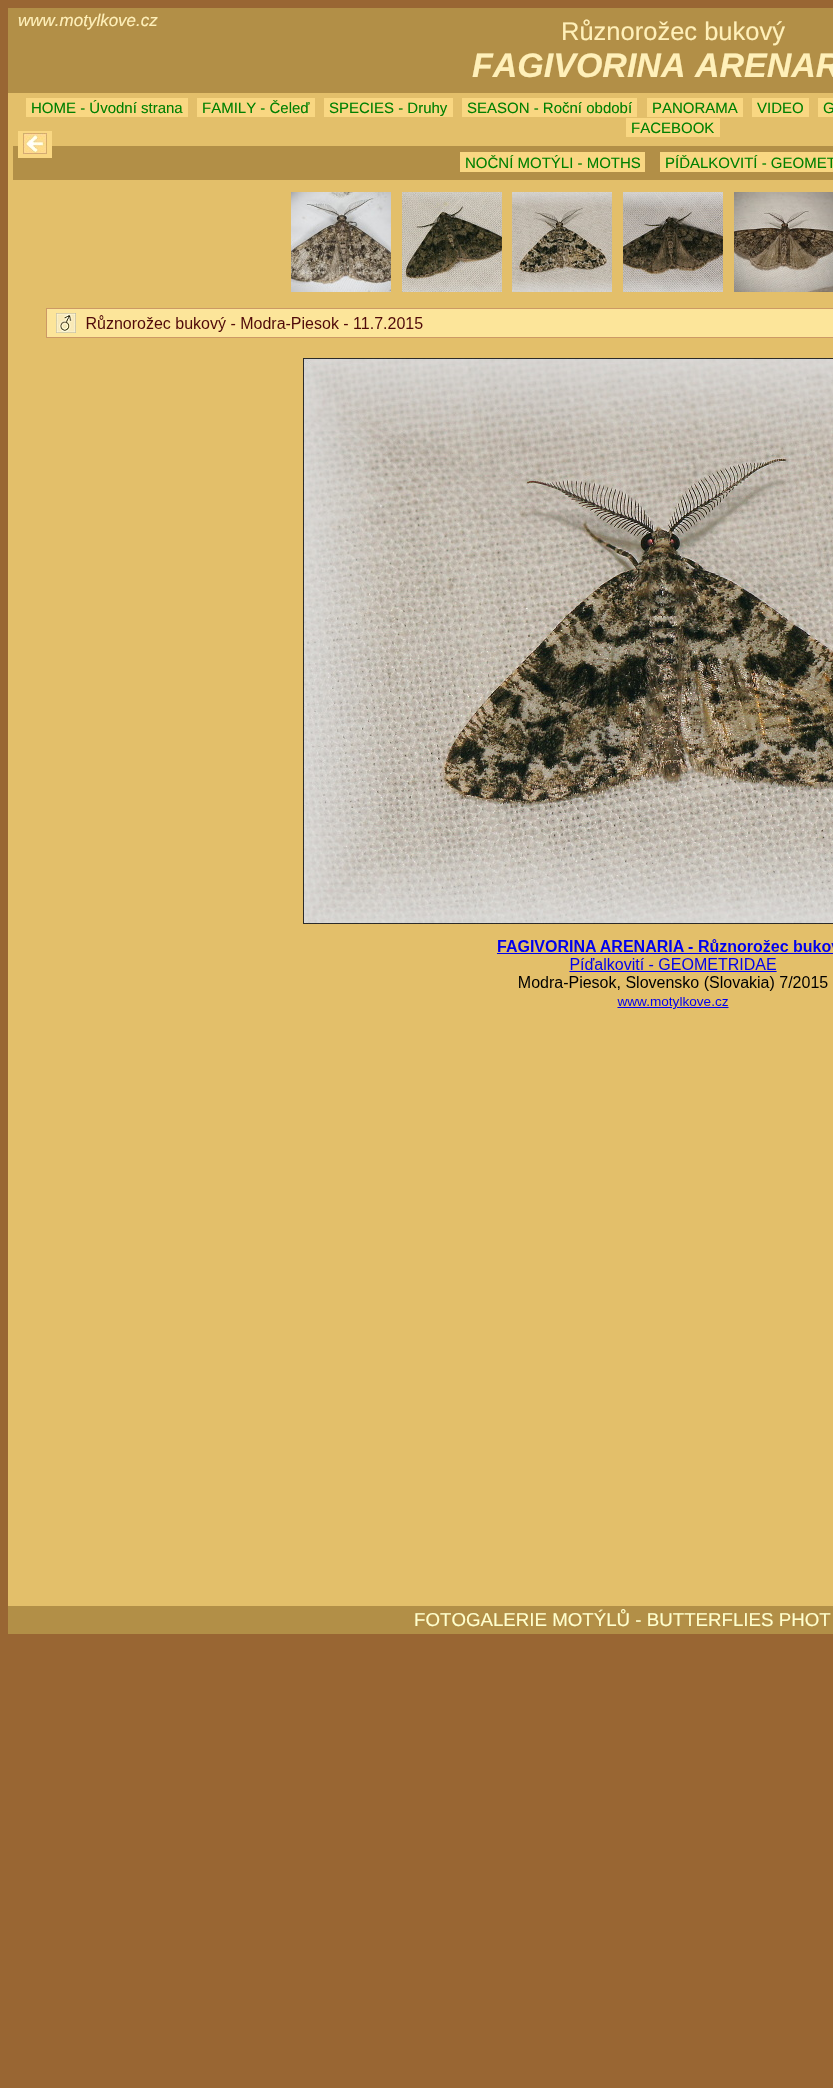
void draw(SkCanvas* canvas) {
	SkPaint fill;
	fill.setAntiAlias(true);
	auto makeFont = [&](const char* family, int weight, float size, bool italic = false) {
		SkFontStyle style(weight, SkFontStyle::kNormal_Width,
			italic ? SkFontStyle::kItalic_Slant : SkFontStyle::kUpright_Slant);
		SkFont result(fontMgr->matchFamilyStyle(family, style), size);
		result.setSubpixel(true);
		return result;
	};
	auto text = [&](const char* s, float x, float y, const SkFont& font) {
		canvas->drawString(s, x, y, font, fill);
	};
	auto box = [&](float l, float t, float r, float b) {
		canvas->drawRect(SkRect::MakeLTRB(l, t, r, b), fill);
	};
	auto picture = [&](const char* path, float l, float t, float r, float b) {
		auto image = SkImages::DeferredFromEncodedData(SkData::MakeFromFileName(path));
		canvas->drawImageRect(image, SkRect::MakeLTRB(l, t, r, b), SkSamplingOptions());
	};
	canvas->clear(0xFF996633);
	fill.setColor(0xFFE3BF6A);
	box(8, 93, 833, 1606);
	fill.setColor(0xFFB28F47);
	box(8, 8, 833, 93);
	fill.setColor(0xFFF9D782);
	box(26, 98, 188, 117);
	box(197, 98, 315, 117);
	box(324, 98, 453, 117);
	box(462, 98, 637, 117);
	box(647, 98, 743, 117);
	box(752, 98, 809, 117);
	box(818, 98, 833, 117);
	box(626, 118, 720, 137);
	fill.setColor(0xFFB28F47);
	box(13, 146, 833, 180);
	fill.setColor(0xFFF9D782);
	box(18, 131, 52, 158);
	picture("image0.png", 23, 133, 47, 154);
	box(460, 152, 645, 172);
	box(660, 152, 833, 172);
	picture("image1.png", 291, 192, 391, 292);
	picture("image2.png", 402, 192, 502, 292);
	picture("image3.png", 512, 192, 612, 292);
	picture("image4.png", 623, 192, 723, 292);
	picture("image5.png", 734, 192, 833, 292);
	picture("image6.png", 46, 308, 833, 1009);
	fill.setColor(0xFFB28F47);
	box(8, 1606, 833, 1634);
	auto font1 = makeFont("Liberation Sans", 400, 17, true);
	fill.setColor(0xFFFFF0B9);
	text("www.motylkove.cz", 18, 26, font1);
	auto font2 = makeFont("Liberation Sans", 400, 25.5f);
	text("Různorožec bukový", 561, 40, font2);
	auto font3 = makeFont("Liberation Sans", 700, 34, true);
	text("FAGIVORINA ARENAR", 472, 77, font3);
	auto font4 = makeFont("Liberation Sans", 400, 15);
	fill.setColor(0xFF008000);
	text("HOME - Úvodní strana", 31, 113, font4);
	text("FAMILY - Čeleď", 202, 113, font4);
	text("SPECIES - Druhy", 329, 113, font4);
	text("SEASON - Roční období", 467, 113, font4);
	text("PANORAMA", 652, 113, font4);
	text("VIDEO", 757, 113, font4);
	text("G", 823, 113, font4);
	text("FACEBOOK", 631, 133, font4);
	text("NOČNÍ MOTÝLI - MOTHS", 465, 168, font4);
	text("PÍĎALKOVITÍ - GEOMET", 665, 168, font4);
	auto font5 = makeFont("Liberation Sans", 400, 18.7f);
	fill.setColor(0xFFFFFFCC);
	text("FOTOGALERIE MOTÝLŮ - BUTTERFLIES PHOT", 414, 1626, font5);
}
